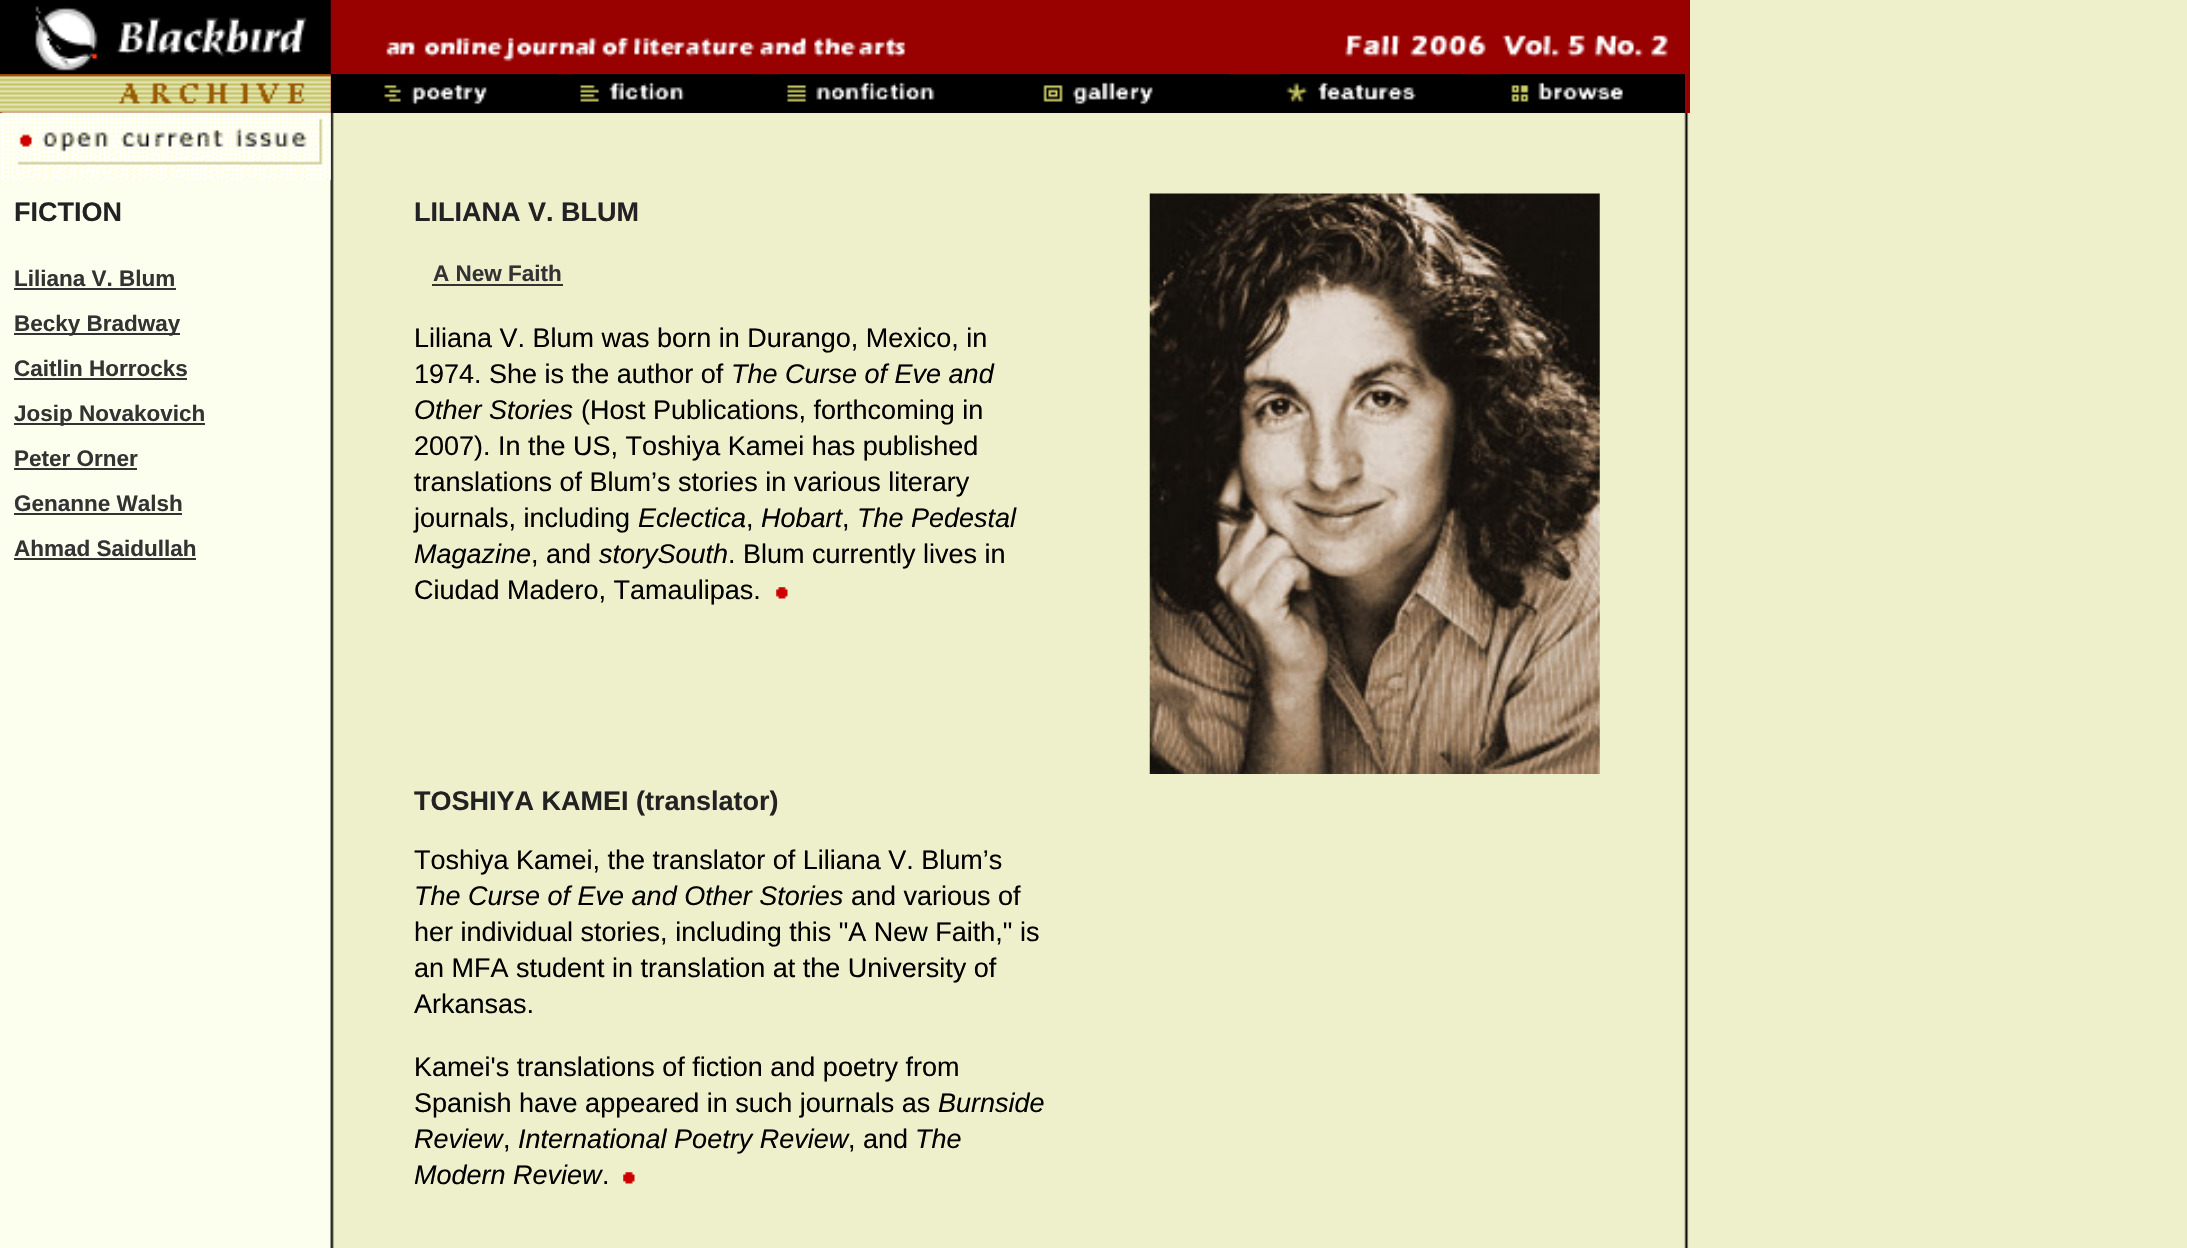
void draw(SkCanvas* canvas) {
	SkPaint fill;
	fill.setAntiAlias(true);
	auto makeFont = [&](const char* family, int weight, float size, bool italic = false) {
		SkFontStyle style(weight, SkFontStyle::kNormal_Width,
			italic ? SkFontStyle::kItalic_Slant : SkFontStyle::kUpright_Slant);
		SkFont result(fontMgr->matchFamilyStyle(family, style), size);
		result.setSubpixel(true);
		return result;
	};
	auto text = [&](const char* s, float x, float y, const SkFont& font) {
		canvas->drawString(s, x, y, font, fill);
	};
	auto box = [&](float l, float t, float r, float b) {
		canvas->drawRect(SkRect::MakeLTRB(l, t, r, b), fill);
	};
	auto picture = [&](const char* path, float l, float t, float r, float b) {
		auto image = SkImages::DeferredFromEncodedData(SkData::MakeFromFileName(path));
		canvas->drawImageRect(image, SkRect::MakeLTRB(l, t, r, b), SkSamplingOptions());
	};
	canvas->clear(0xFFFFFFFF);
	picture("image0.png", 0, 0, 2187, 1248);
	fill.setColor(0xFF990000);
	box(0, 0, 1690, 113);
	picture("image1.png", 0, 0, 331, 75);
	fill.setColor(0xFF000000);
	box(331, 74, 1685, 113);
	picture("image2.png", 380, 37, 914, 75);
	picture("image3.png", 1228, 35, 1685, 75);
	picture("image4.png", 0, 74, 331, 113);
	picture("image5.png", 380, 74, 556, 105);
	picture("image6.png", 571, 74, 754, 102);
	picture("image7.png", 778, 74, 935, 102);
	picture("image8.png", 1043, 82, 1153, 105);
	picture("image9.png", 1280, 74, 1463, 102);
	picture("image10.png", 1500, 74, 1683, 102);
	picture("image11.png", 2, 112, 331, 180);
	fill.setColor(0xFF333333);
	box(14, 288, 176, 290);
	box(14, 333, 180, 335);
	box(14, 378, 187, 380);
	box(14, 423, 205, 425);
	box(14, 468, 137, 470);
	box(14, 513, 182, 515);
	box(14, 558, 196, 560);
	picture("image12.png", 1149, 193, 1600, 774);
	box(432, 284, 563, 286);
	picture("image13.png", 776, 587, 788, 599);
	picture("image14.png", 623, 1172, 635, 1184);
	auto font1 = makeFont("Liberation Sans", 700, 27);
	fill.setColor(0xFF222222);
	text("FICTION", 14, 221, font1);
	auto font2 = makeFont("Liberation Sans", 700, 22.5f);
	fill.setColor(0xFF333333);
	text("Liliana V. Blum", 14, 286, font2);
	text("Becky Bradway", 14, 331, font2);
	text("Caitlin Horrocks", 14, 376, font2);
	text("Josip Novakovich", 14, 421, font2);
	text("Peter Orner", 14, 466, font2);
	text("Genanne Walsh", 14, 511, font2);
	text("Ahmad Saidullah", 14, 556, font2);
	fill.setColor(0xFF222222);
	text("LILIANA V. BLUM", 414, 221, font1);
	fill.setColor(0xFF333333);
	text("A New Faith", 433, 281, font2);
	auto font3 = makeFont("Liberation Sans", 400, 27);
	fill.setColor(0xFF000000);
	text("Liliana V. Blum was born in Durango, Mexico, in", 414, 347, font3);
	text("1974. She is the author of", 414, 383, font3);
	auto font4 = makeFont("Liberation Sans", 400, 27, true);
	text("The Curse of Eve and", 731, 383, font4);
	text("Other Stories", 414, 419, font4);
	text("(Host Publications, forthcoming in", 581, 419, font3);
	text("2007). In the US, Toshiya Kamei has published", 414, 455, font3);
	text("translations of Blum’s stories in various literary", 414, 491, font3);
	text("journals, including", 414, 527, font3);
	text("Eclectica", 638, 527, font4);
	text(",", 746, 527, font3);
	text("Hobart", 761, 527, font4);
	text(",", 842, 527, font3);
	text("The Pedestal", 857, 527, font4);
	text("Magazine", 414, 563, font4);
	text(", and", 531, 563, font3);
	text("storySouth", 599, 563, font4);
	text(". Blum currently lives in", 728, 563, font3);
	text("Ciudad Madero, Tamaulipas.", 414, 599, font3);
	fill.setColor(0xFF222222);
	text("TOSHIYA KAMEI (translator)", 414, 810, font1);
	fill.setColor(0xFF000000);
	text("Toshiya Kamei, the translator of Liliana V. Blum’s", 414, 869, font3);
	text("The Curse of Eve and Other Stories", 414, 905, font4);
	text("and various of", 851, 905, font3);
	text("her individual stories, including this \"A New Faith,\" is", 414, 941, font3);
	text("an MFA student in translation at the University of", 414, 977, font3);
	text("Arkansas.", 414, 1013, font3);
	text("Kamei's translations of fiction and poetry from", 414, 1076, font3);
	text("Spanish have appeared in such journals as", 414, 1112, font3);
	text("Burnside", 938, 1112, font4);
	text("Review", 414, 1148, font4);
	text(",", 503, 1148, font3);
	text("International Poetry Review", 518, 1148, font4);
	text(", and", 848, 1148, font3);
	text("The", 915, 1148, font4);
	text("Modern Review", 414, 1184, font4);
	text(".", 602, 1184, font3);
}
